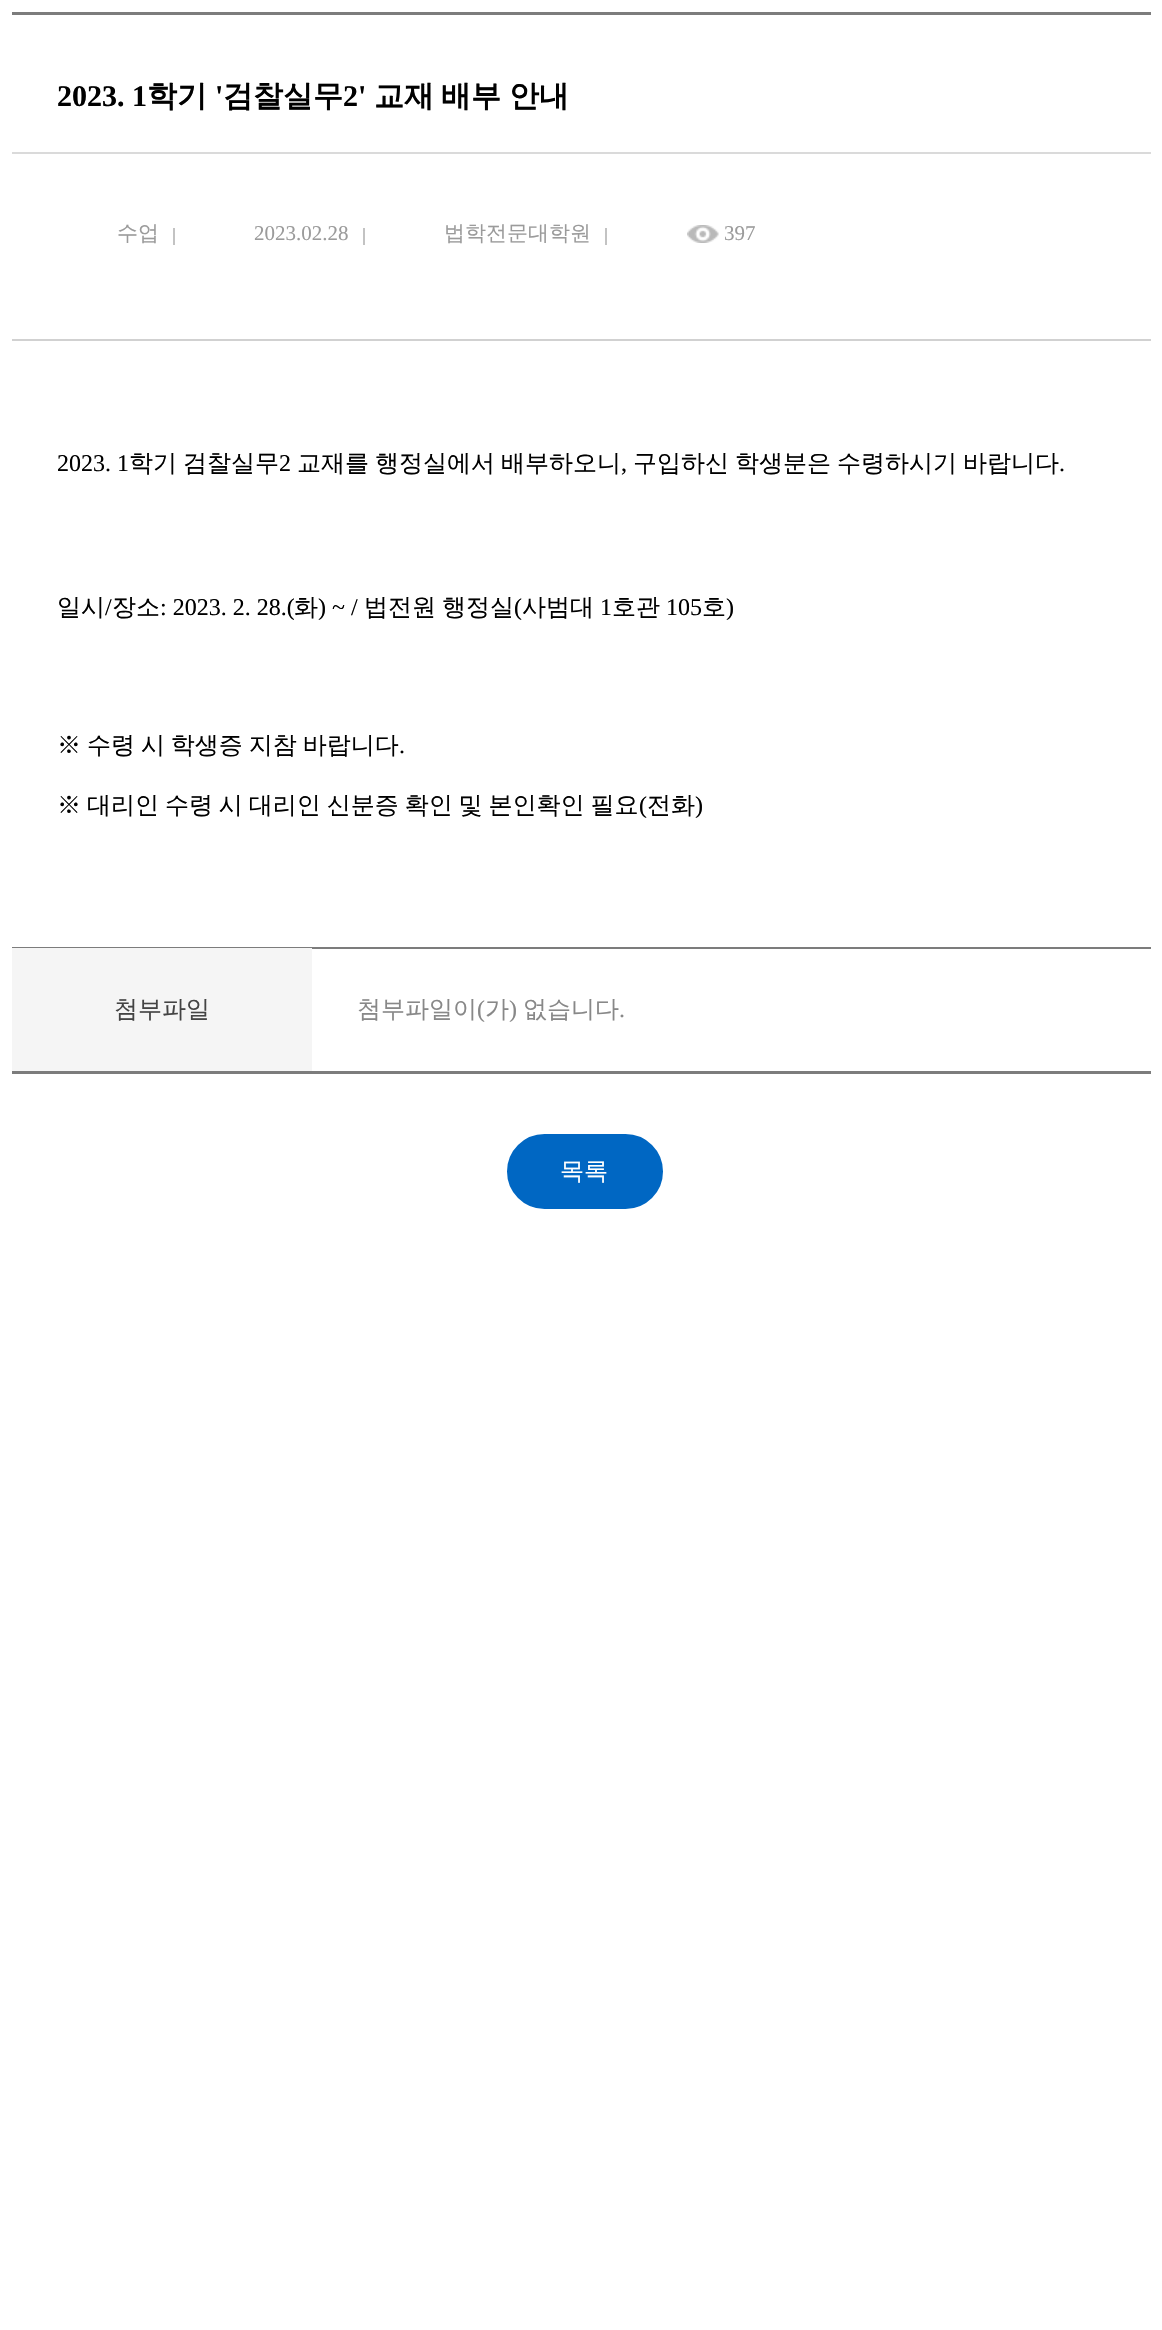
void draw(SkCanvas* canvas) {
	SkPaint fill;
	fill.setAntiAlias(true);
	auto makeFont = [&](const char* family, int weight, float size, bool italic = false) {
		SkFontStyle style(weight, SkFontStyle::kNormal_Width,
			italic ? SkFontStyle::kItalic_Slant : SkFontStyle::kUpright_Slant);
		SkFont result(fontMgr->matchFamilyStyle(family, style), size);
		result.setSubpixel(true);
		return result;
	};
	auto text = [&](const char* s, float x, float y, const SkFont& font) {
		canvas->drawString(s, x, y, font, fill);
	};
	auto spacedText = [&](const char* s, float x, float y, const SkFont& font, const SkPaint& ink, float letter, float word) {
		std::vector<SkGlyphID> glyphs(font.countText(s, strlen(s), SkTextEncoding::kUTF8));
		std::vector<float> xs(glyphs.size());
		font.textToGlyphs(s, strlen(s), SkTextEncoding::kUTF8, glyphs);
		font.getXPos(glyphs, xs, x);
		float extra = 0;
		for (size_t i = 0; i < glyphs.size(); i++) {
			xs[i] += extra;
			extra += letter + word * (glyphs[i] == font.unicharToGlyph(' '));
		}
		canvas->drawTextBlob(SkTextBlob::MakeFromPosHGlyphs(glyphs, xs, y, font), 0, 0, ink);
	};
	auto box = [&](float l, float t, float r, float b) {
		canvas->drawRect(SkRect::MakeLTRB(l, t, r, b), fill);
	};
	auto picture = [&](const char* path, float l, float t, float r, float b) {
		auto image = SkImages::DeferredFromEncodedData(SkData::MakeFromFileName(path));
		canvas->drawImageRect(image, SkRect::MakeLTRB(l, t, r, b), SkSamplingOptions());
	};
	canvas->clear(0xFFFFFFFF);
	fill.setColor(0xFF7C7C7C);
	box(12, 12, 1151, 15);
	fill.setColor(0xFFDADADA);
	box(12, 152, 1151, 154);
	fill.setColor(0xFFD1D1D1);
	box(12, 339, 1151, 341);
	fill.setColor(0xFFC3C3C3);
	box(173, 228, 175, 245);
	box(363, 228, 365, 245);
	box(605, 228, 607, 245);
	picture("image0.png", 687, 225, 719, 243);
	fill.setColor(0xFF7C7C7C);
	box(12, 947, 1151, 949);
	box(12, 1071, 1151, 1074);
	fill.setColor(0xFFF5F5F5);
	box(12, 948, 312, 1071);
	fill.setColor(0xFF0067C3);
	canvas->drawRoundRect(SkRect::MakeLTRB(508, 1135, 662, 1208), 36.5f, 36.5f, fill);
	fill.setStyle(SkPaint::kStroke_Style);
	fill.setStrokeWidth(2);
	canvas->drawRoundRect(SkRect::MakeLTRB(508, 1135, 662, 1208), 36.5f, 36.5f, fill);
	auto font1 = makeFont("Liberation Serif", 700, 30);
	fill.setStyle(SkPaint::kFill_Style);
	fill.setColor(0xFF000000);
	text("2023. 1", 57, 106, font1);
	auto font2 = makeFont("WenQuanYi Zen Hei", 700, 30);
	text("학기", 147, 106, font2);
	text("'", 215, 106, font1);
	text("검찰실무", 223, 106, font2);
	text("2'", 343, 106, font1);
	text("교재", 374, 106, font2);
	text("배부", 441, 106, font2);
	text("안내", 509, 106, font2);
	auto font3 = makeFont("WenQuanYi Zen Hei", 500, 21);
	fill.setColor(0xFF9B9B9B);
	text("수업", 117, 240, font3);
	auto font4 = makeFont("Liberation Serif", 400, 21);
	text("2023.02.28", 254, 240, font4);
	text("법학전문대학원", 444, 240, font3);
	text("397", 724, 240, font4);
	auto font5 = makeFont("Liberation Serif", 400, 24);
	fill.setColor(0xFF000000);
	text("2023. 1", 57, 471, font5);
	auto font6 = makeFont("WenQuanYi Zen Hei", 500, 24);
	text("학기", 129, 471, font6);
	text("검찰실무", 183, 471, font6);
	text("2", 279, 471, font5);
	text("교재를", 297, 471, font6);
	text("행정실에서", 375, 471, font6);
	text("배부하오니", 501, 471, font6);
	text(",", 621, 471, font5);
	text("구입하신", 633, 471, font6);
	text("학생분은", 735, 471, font6);
	text("수령하시기", 837, 471, font6);
	text("바랍니다", 963, 471, font6);
	text(".", 1059, 471, font5);
	text("일시", 57, 615, font6);
	text("/", 105, 615, font5);
	text("장소", 112, 615, font6);
	text(": 2023. 2. 28.(", 160, 615, font5);
	text("화", 294, 615, font6);
	text(") ~ /", 318, 615, font5);
	text("법전원", 364, 615, font6);
	text("행정실", 442, 615, font6);
	text("(", 514, 615, font5);
	text("사범대", 522, 615, font6);
	text("1", 600, 615, font5);
	text("호관", 612, 615, font6);
	text("105", 666, 615, font5);
	text("호", 702, 615, font6);
	text(")", 726, 615, font5);
	spacedText("※ 수령 시 학생증 지참 바랍니다", 57, 753, font6, fill, 0, -1.25f);
	text(".", 399, 753, font5);
	spacedText("※ 대리인 수령 시 대리인 신분증 확인 및 본인확인 필요", 57, 813, font6, fill, 0, -1.25f);
	text("(", 639, 813, font5);
	text("전화", 647, 813, font6);
	text(")", 695, 813, font5);
	fill.setColor(0xFF444444);
	text("첨부파일", 114, 1017, font6);
	fill.setColor(0xFF888888);
	text("첨부파일이", 357, 1017, font6);
	text("(", 477, 1017, font5);
	text("가", 485, 1017, font6);
	text(")", 509, 1017, font5);
	text("없습니다", 523, 1017, font6);
	text(".", 619, 1017, font5);
	fill.setColor(0xFFFFFFFF);
	text("목록", 560, 1179, font6);
}
